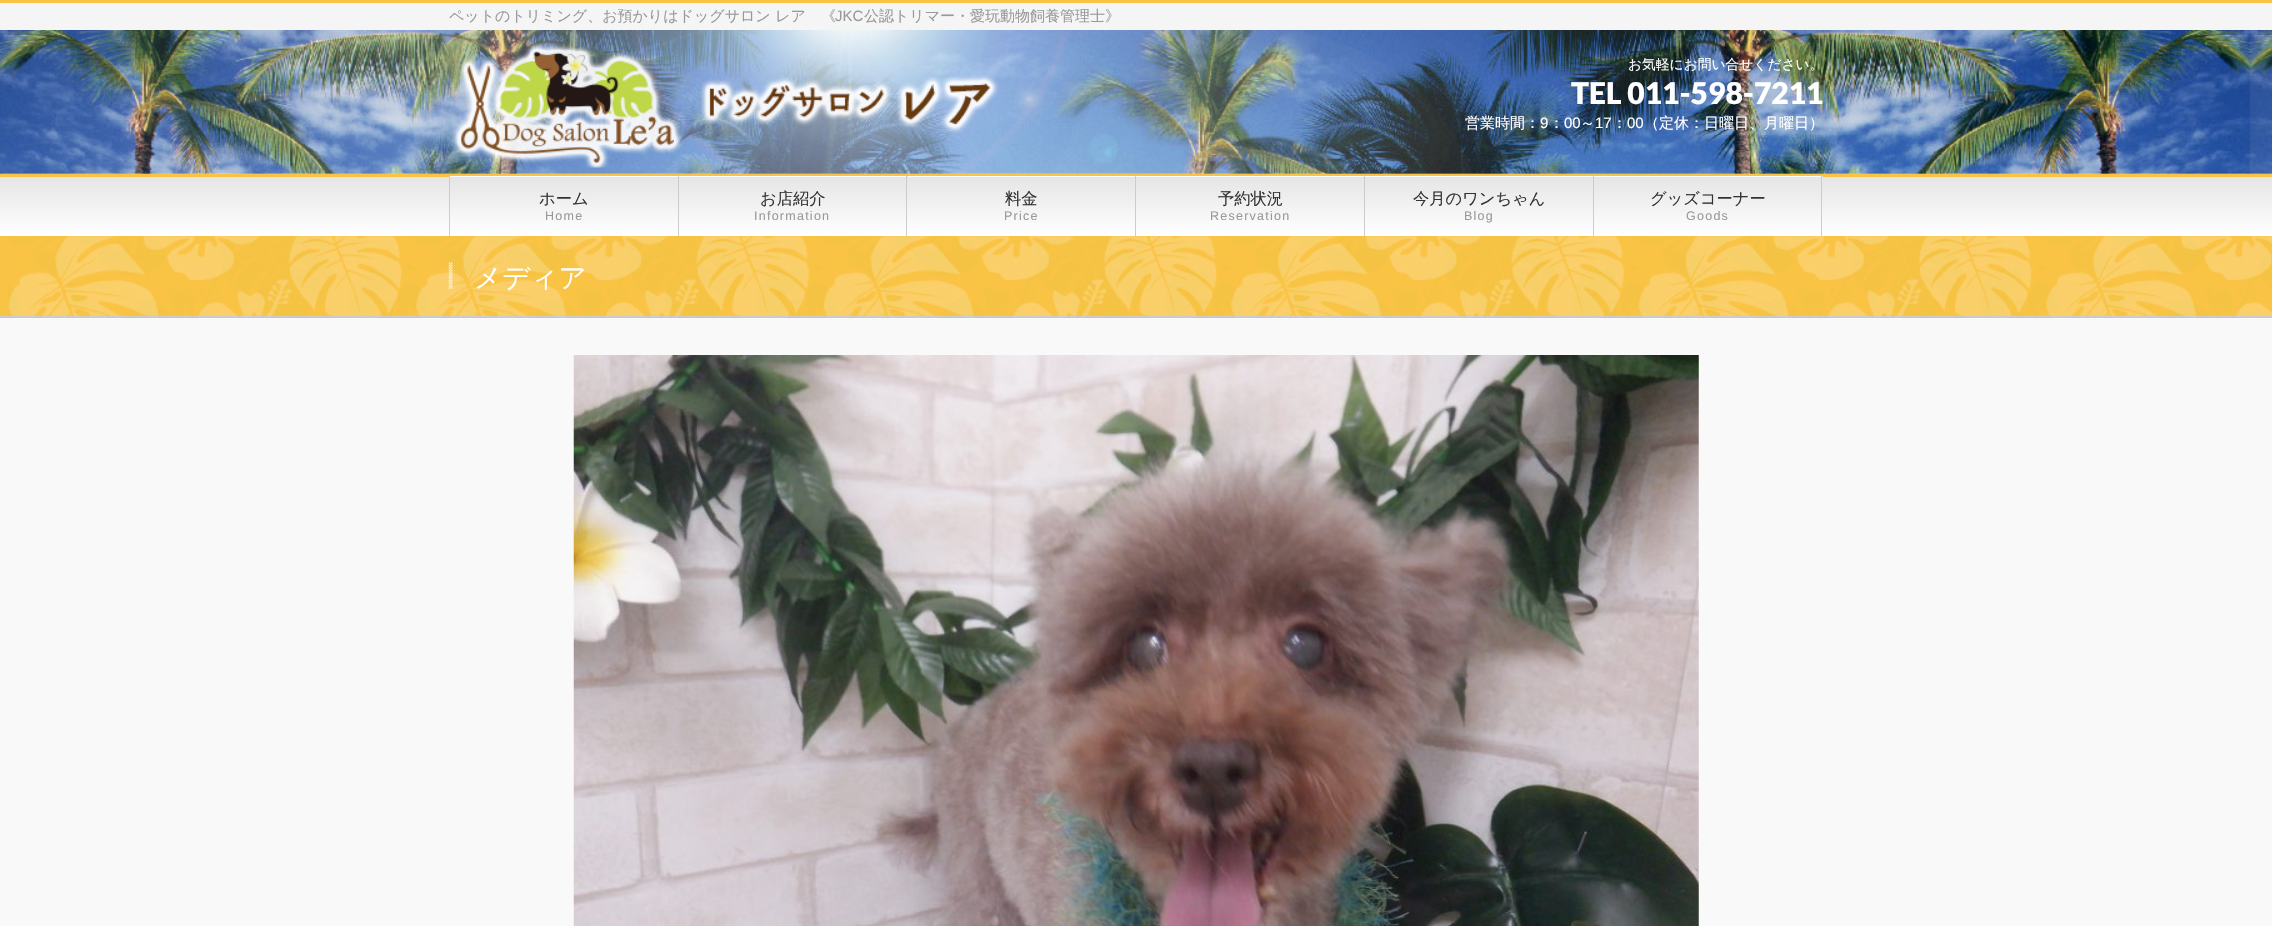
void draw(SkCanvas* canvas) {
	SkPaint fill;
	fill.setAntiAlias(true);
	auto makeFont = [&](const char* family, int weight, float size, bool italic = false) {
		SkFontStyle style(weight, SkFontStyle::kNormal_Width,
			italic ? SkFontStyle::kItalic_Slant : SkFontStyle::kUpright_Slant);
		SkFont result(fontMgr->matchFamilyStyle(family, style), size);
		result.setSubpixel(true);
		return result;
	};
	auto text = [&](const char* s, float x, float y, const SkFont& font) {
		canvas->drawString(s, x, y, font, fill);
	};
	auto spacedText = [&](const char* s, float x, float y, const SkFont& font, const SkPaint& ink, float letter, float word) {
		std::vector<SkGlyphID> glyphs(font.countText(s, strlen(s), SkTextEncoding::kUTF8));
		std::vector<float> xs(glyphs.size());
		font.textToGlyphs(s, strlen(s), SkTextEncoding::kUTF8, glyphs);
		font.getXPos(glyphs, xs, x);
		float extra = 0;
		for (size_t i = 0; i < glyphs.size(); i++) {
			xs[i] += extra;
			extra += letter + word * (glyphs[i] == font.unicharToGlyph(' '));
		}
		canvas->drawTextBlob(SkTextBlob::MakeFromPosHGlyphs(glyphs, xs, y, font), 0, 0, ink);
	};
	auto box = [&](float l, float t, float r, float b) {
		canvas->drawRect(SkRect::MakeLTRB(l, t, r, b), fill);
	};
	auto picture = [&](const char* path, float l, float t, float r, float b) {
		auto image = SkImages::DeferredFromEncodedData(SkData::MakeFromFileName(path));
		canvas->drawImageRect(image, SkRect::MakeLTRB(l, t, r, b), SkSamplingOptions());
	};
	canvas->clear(0xFFF9F9F9);
	fill.setColor(0xFFF5F5F5);
	box(0, 3, 2272, 30);
	fill.setColor(0xFFF9C345);
	box(0, 0, 2272, 3);
	picture("image0.png", 0, 30, 2272, 174);
	picture("image1.png", 452, 43, 999, 168);
	{
		const SkColor colors[] = {0xFFE5E5E5, 0xFFFFFFFF};
		const float stops[] = {0, 1};
		const SkPoint ends[] = {{0, 176}, {0, 236}};
		fill.setShader(SkGradientShader::MakeLinear(ends, colors, stops, 2, SkTileMode::kClamp));
		fill.setAlpha(255);
	}
	box(0, 177, 2272, 236);
	fill.setShader(nullptr);
	fill.setColor(0xFFF9C345);
	box(0, 174, 2272, 177);
	fill.setColor(0xFFCCCCCC);
	box(449, 176, 450, 236);
	fill.setColor(0xFFFFFFFF);
	box(450, 176, 678, 177);
	fill.setColor(0xFFCCCCCC);
	box(678, 176, 679, 236);
	{
		const SkColor colors[] = {0xFFE5E5E5, 0xFFFFFFFF};
		const float stops[] = {0, 1};
		const SkPoint ends[] = {{679, 176}, {679, 236}};
		fill.setShader(SkGradientShader::MakeLinear(ends, colors, stops, 2, SkTileMode::kClamp));
		fill.setAlpha(255);
	}
	box(679, 176, 908, 177);
	fill.setShader(nullptr);
	fill.setColor(0xFFFFFFFF);
	box(679, 176, 906, 177);
	fill.setColor(0xFFCCCCCC);
	box(906, 176, 907, 236);
	fill.setColor(0xFFFFFFFF);
	box(908, 176, 1135, 177);
	fill.setColor(0xFFCCCCCC);
	box(1135, 176, 1136, 236);
	fill.setColor(0xFFFFFFFF);
	box(1136, 176, 1364, 177);
	fill.setColor(0xFFCCCCCC);
	box(1364, 176, 1365, 236);
	fill.setColor(0xFFFFFFFF);
	box(1365, 176, 1593, 177);
	fill.setColor(0xFFCCCCCC);
	box(1593, 176, 1594, 236);
	{
		const SkColor colors[] = {0xFFE5E5E5, 0xFFFFFFFF};
		const float stops[] = {0, 1};
		const SkPoint ends[] = {{1594, 176}, {1594, 236}};
		fill.setShader(SkGradientShader::MakeLinear(ends, colors, stops, 2, SkTileMode::kClamp));
		fill.setAlpha(255);
	}
	box(1594, 176, 1823, 177);
	fill.setShader(nullptr);
	fill.setColor(0xFFFFFFFF);
	box(1594, 176, 1821, 177);
	fill.setColor(0xFFCCCCCC);
	box(1821, 176, 1822, 236);
	fill.setColor(0xFFF9C345);
	box(0, 236, 2272, 318);
	picture("image2.png", 8, 236, 2272, 318);
	fill.setColor(0xFFCCCCCC);
	box(0, 316, 2272, 317);
	picture("image3.png", 448, 262, 453, 289);
	picture("image4.png", 573, 355, 1699, 926);
	auto font1 = makeFont("WenQuanYi Zen Hei", 500, 15);
	fill.setColor(0xFF999999);
	text("ペットのトリミング、お預かりはドッグサロン レア　《", 449, 21, font1);
	auto font2 = makeFont("Liberation Sans", 400, 15);
	text("JKC", 835, 21, font2);
	text("公認トリマー・愛玩動物飼養管理士》", 864, 21, font1);
	auto font3 = makeFont("WenQuanYi Zen Hei", 500, 13.75f);
	fill.setColor(0xFFFFFFFF);
	text("お気軽にお問い合せください。", 1628, 69, font3);
	auto font4 = makeFont("Lato", 900, 30);
	text("TEL 011-598-7211", 1571, 104, font4);
	text("営業時間：", 1465, 128, font1);
	text("9", 1540, 128, font2);
	text("：", 1549, 128, font1);
	text("00", 1564, 128, font2);
	text("～", 1580, 128, font1);
	text("17", 1595, 128, font2);
	text("：", 1612, 128, font1);
	text("00", 1627, 128, font2);
	text("（定休：日曜日、月曜日）", 1644, 128, font1);
	auto font5 = makeFont("WenQuanYi Zen Hei", 500, 16.25f);
	fill.setColor(0xFF333333);
	text("ホーム", 539, 204, font5);
	auto font6 = makeFont("Liberation Sans", 400, 12.5f);
	fill.setColor(0xFF999999);
	spacedText("Home", 545, 220, font6, fill, 1.25f, 0);
	fill.setColor(0xFF333333);
	text("お店紹介", 760, 204, font5);
	fill.setColor(0xFF999999);
	spacedText("Information", 754, 220, font6, fill, 1.25f, 0);
	fill.setColor(0xFF333333);
	text("料金", 1005, 204, font5);
	fill.setColor(0xFF999999);
	spacedText("Price", 1004, 220, font6, fill, 1.25f, 0);
	fill.setColor(0xFF333333);
	text("予約状況", 1218, 204, font5);
	fill.setColor(0xFF999999);
	spacedText("Reservation", 1210, 220, font6, fill, 1.25f, 0);
	fill.setColor(0xFF333333);
	text("今月のワンちゃん", 1413, 204, font5);
	fill.setColor(0xFF999999);
	spacedText("Blog", 1464, 220, font6, fill, 1.25f, 0);
	fill.setColor(0xFF333333);
	text("グッズコーナー", 1650, 204, font5);
	fill.setColor(0xFF999999);
	spacedText("Goods", 1686, 220, font6, fill, 1.25f, 0);
	auto font7 = makeFont("WenQuanYi Zen Hei", 500, 27.5f);
	fill.setColor(0xFFFFFFFF);
	text("メディア", 474, 287, font7);
}
